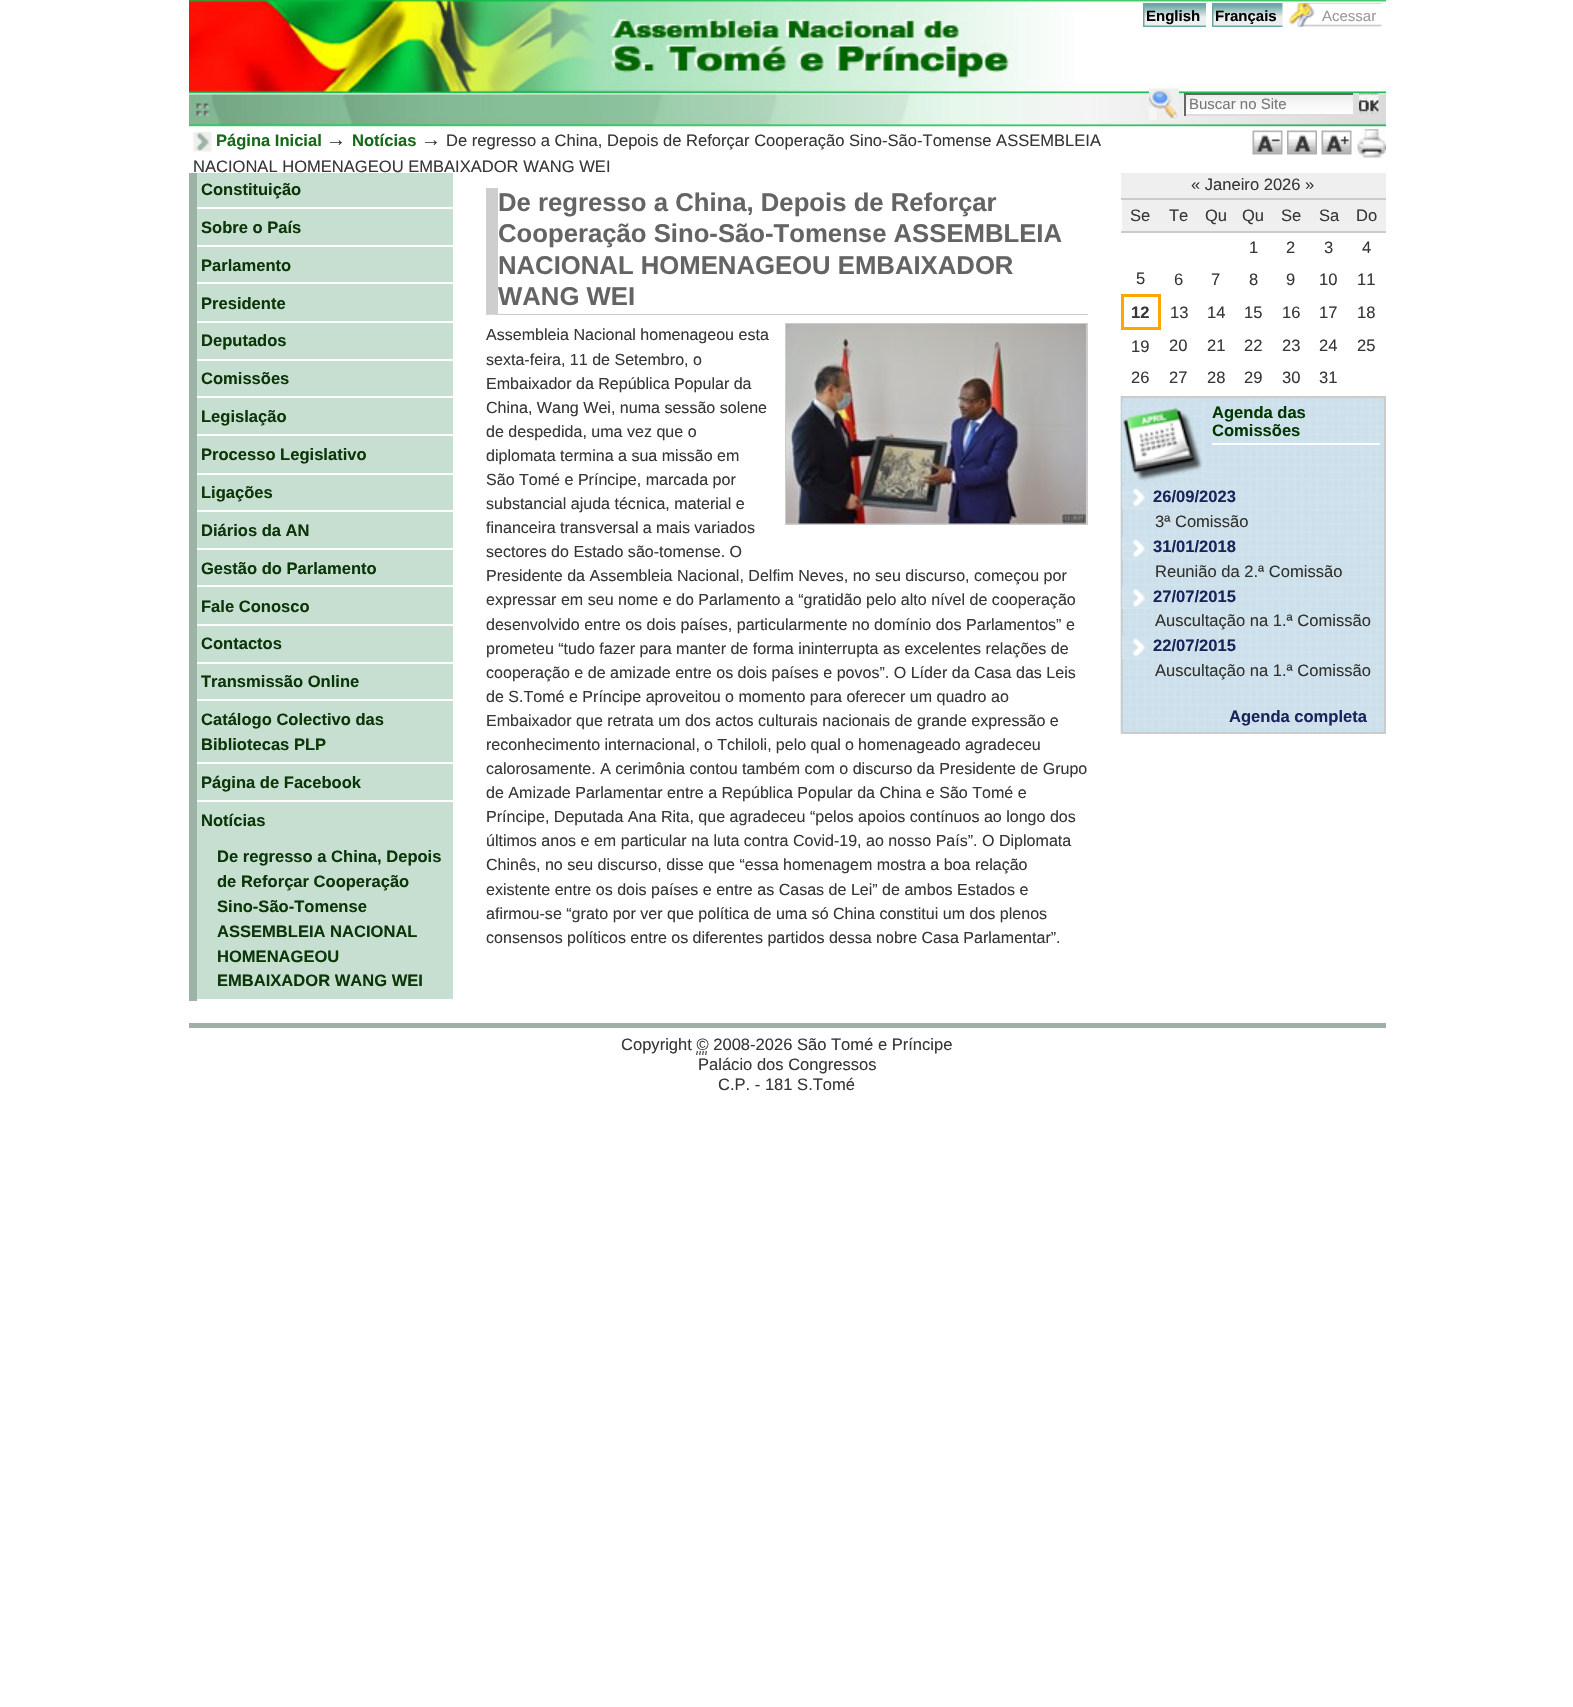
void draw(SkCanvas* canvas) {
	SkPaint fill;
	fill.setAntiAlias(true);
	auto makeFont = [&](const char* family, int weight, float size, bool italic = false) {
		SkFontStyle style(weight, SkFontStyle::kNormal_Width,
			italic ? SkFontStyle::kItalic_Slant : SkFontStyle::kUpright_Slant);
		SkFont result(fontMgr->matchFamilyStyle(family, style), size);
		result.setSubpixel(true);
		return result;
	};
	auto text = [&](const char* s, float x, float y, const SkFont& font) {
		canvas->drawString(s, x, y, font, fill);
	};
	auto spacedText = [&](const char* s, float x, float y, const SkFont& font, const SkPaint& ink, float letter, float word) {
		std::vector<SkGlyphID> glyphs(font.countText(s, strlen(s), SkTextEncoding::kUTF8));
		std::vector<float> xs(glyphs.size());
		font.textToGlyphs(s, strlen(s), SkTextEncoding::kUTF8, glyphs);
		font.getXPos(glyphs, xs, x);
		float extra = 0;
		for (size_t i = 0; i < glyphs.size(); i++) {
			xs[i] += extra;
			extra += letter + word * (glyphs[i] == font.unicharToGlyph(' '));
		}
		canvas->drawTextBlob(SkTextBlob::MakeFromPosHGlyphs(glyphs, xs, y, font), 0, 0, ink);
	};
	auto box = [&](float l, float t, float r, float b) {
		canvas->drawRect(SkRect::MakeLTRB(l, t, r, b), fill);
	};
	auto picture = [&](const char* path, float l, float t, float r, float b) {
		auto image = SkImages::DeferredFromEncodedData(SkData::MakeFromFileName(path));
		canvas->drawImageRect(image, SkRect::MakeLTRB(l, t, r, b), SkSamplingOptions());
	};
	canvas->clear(0xFFFFFFFF);
	picture("image0.png", 189, 0, 1386, 128);
	picture("image1.png", 1143, 3, 1206, 27);
	picture("image2.png", 1212, 3, 1283, 27);
	picture("image3.png", 1288, 3, 1382, 27);
	picture("image4.png", 1149, 88, 1179, 120);
	picture("image5.png", 1183, 94, 1353, 116);
	fill.setColor(0xFF666666);
	box(1184, 93, 1355, 95);
	fill.setColor(0xFFDDDDDD);
	box(1353, 93, 1355, 95);
	box(1184, 114, 1355, 116);
	fill.setColor(0xFF666666);
	box(1184, 93, 1186, 116);
	picture("image6.png", 1359, 93, 1379, 114);
	picture("image7.png", 193, 132, 212, 152);
	picture("image8.png", 1252, 130, 1283, 155);
	picture("image9.png", 1287, 130, 1317, 155);
	picture("image10.png", 1321, 130, 1352, 155);
	picture("image11.png", 1357, 129, 1386, 158);
	fill.setColor(0xFFC7DFD1);
	box(197, 173, 453, 999);
	fill.setColor(0xFF9DB3A6);
	box(189, 173, 197, 1001);
	fill.setColor(0xFFFFFFFF);
	box(197, 207, 453, 209);
	box(197, 245, 453, 247);
	box(197, 282, 453, 284);
	box(197, 321, 453, 323);
	box(197, 359, 453, 361);
	box(197, 396, 453, 398);
	box(197, 434, 453, 436);
	box(197, 473, 453, 475);
	box(197, 510, 453, 512);
	box(197, 548, 453, 550);
	box(197, 585, 453, 587);
	box(197, 624, 453, 626);
	box(197, 662, 453, 664);
	box(197, 699, 453, 701);
	box(197, 762, 453, 764);
	box(197, 800, 453, 802);
	fill.setColor(0xFFCBCBCB);
	canvas->drawPath(SkPathBuilder().moveTo(1088, 315).lineTo(486, 315).lineTo(498, 314).lineTo(1088, 314).close().detach(), fill);
	fill.setColor(0xFFCECECE);
	canvas->drawPath(SkPathBuilder().moveTo(486, 315).lineTo(486, 188).lineTo(498, 188).lineTo(498, 314).close().detach(), fill);
	fill.setStyle(SkPaint::kStroke_Style);
	fill.setStrokeWidth(2);
	fill.setColor(0xFFCCCCCC);
	canvas->drawRect(SkRect::MakeLTRB(786, 324, 1087, 524), fill);
	picture("image12.png", 786, 324, 1086, 524);
	fill.setStyle(SkPaint::kFill_Style);
	fill.setColor(0xFFEFEFEF);
	box(1121, 173, 1386, 198);
	box(1122, 200, 1386, 231);
	fill.setColor(0xFFCBCBCB);
	box(1121, 198, 1386, 200);
	box(1121, 231, 1386, 233);
	fill.setColor(0xFFFFA500);
	box(1121, 294, 1161, 297);
	box(1158, 294, 1161, 330);
	box(1121, 327, 1161, 330);
	box(1121, 294, 1124, 330);
	picture("image13.png", 1120, 396, 1384, 734);
	fill.setStyle(SkPaint::kStroke_Style);
	fill.setColor(0xFFCCCCCC);
	canvas->drawRect(SkRect::MakeLTRB(1122, 397, 1385, 733), fill);
	picture("image14.png", 1122, 402, 1203, 483);
	fill.setStyle(SkPaint::kFill_Style);
	fill.setColor(0xFFFFFFFF);
	box(1212, 443, 1380, 445);
	picture("image15.png", 1122, 486, 1149, 509);
	picture("image16.png", 1122, 537, 1149, 560);
	picture("image17.png", 1122, 586, 1149, 609);
	picture("image15.png", 1122, 636, 1149, 659);
	fill.setColor(0xFF9FB0A6);
	box(189, 1023, 1386, 1028);
	fill.setStyle(SkPaint::kStroke_Style);
	fill.setStrokeWidth(1.5f);
	fill.setColor(0xFF373737);
	fill.setPathEffect(SkDashPathEffect::Make({{1.5f, 1.5f}}, 0));
	canvas->drawPath(SkPathBuilder().moveTo(696, 1054).lineTo(708, 1054).moveTo(696.5f, 1052).lineTo(708.5f, 1052).detach(), fill);
	fill.setPathEffect(nullptr);
	auto font1 = makeFont("Liberation Sans", 700, 15);
	fill.setStyle(SkPaint::kFill_Style);
	fill.setColor(0xFF000000);
	text("English", 1146, 21, font1);
	text("Français", 1215, 21, font1);
	auto font2 = makeFont("Liberation Sans", 400, 15);
	fill.setColor(0xFF999999);
	text("Acessar", 1322, 21, font2);
	fill.setColor(0xFF76797C);
	text("Buscar no Site", 1189, 109, font2);
	auto font3 = makeFont("Liberation Sans", 700, 16.55f);
	fill.setColor(0xFF166919);
	text("Página Inicial", 216, 146, font3);
	auto font4 = makeFont("Liberation Sans", 400, 20);
	fill.setColor(0xFF373737);
	text("→", 326, 146, font4);
	fill.setColor(0xFF166919);
	text("Notícias", 352, 146, font3);
	fill.setColor(0xFF373737);
	text("→", 421, 146, font4);
	auto font5 = makeFont("Liberation Sans", 400, 16.55f);
	text("De regresso a China, Depois de Reforçar Cooperação Sino-São-Tomense ASSEMBLEIA", 446, 146, font5);
	text("NACIONAL HOMENAGEOU EMBAIXADOR WANG WEI", 193, 172, font5);
	fill.setColor(0xFF0B3608);
	text("Constituição", 201, 195, font3);
	text("Sobre o País", 201, 233, font3);
	text("Parlamento", 201, 271, font3);
	text("Presidente", 201, 309, font3);
	text("Deputados", 201, 346, font3);
	text("Comissões", 201, 384, font3);
	text("Legislação", 201, 422, font3);
	text("Processo Legislativo", 201, 460, font3);
	text("Ligações", 201, 498, font3);
	text("Diários da AN", 201, 536, font3);
	text("Gestão do Parlamento", 201, 574, font3);
	text("Fale Conosco", 201, 612, font3);
	text("Contactos", 201, 649, font3);
	text("Transmissão Online", 201, 687, font3);
	text("Catálogo Colectivo das", 201, 725, font3);
	text("Bibliotecas PLP", 201, 750, font3);
	text("Página de Facebook", 201, 788, font3);
	text("Notícias", 201, 826, font3);
	text("De regresso a China, Depois", 217, 862, font3);
	text("de Reforçar Cooperação", 217, 887, font3);
	text("Sino-São-Tomense", 217, 912, font3);
	text("ASSEMBLEIA NACIONAL", 217, 937, font3);
	text("HOMENAGEOU", 217, 962, font3);
	text("EMBAIXADOR WANG WEI", 217, 986, font3);
	auto font6 = makeFont("Liberation Sans", 700, 25.7f);
	fill.setColor(0xFF646464);
	text("De regresso a China, Depois de Reforçar", 498, 211, font6);
	text("Cooperação Sino-São-Tomense ASSEMBLEIA", 498, 242, font6);
	text("NACIONAL HOMENAGEOU EMBAIXADOR", 498, 274, font6);
	text("WANG WEI", 498, 305, font6);
	auto font7 = makeFont("Liberation Sans", 400, 16.05f);
	fill.setColor(0xFF373737);
	text("Assembleia Nacional homenageou esta", 486, 340, font7);
	text("sexta-feira, 11 de Setembro, o", 486, 365, font7);
	spacedText("Embaixador da República Popular da", 486, 389, font7, fill, 0, -0.1f);
	text("China, Wang Wei, numa sessão solene", 486, 413, font7);
	text("de despedida, uma vez que o", 486, 437, font7);
	text("diplomata termina a sua missão em", 486, 461, font7);
	text("São Tomé e Príncipe, marcada por", 486, 485, font7);
	text("substancial ajuda técnica, material e", 486, 509, font7);
	spacedText("financeira transversal a mais variados", 486, 533, font7, fill, 0, -0.1f);
	text("sectores do Estado são-tomense. O", 486, 557, font7);
	text("Presidente da Assembleia Nacional, Delfim Neves, no seu discurso, começou por", 486, 581, font7);
	text("expressar em seu nome e do Parlamento a “gratidão pelo alto nível de cooperação", 486, 605, font7);
	text("desenvolvido entre os dois países, particularmente no domínio dos Parlamentos” e", 486, 630, font7);
	text("prometeu “tudo fazer para manter de forma ininterrupta as excelentes relações de", 486, 654, font7);
	text("cooperação e de amizade entre os dois países e povos”. O Líder da Casa das Leis", 486, 678, font7);
	text("de S.Tomé e Príncipe aproveitou o momento para oferecer um quadro ao", 486, 702, font7);
	text("Embaixador que retrata um dos actos culturais nacionais de grande expressão e", 486, 726, font7);
	spacedText("reconhecimento internacional, o Tchiloli, pelo qual o homenageado agradeceu", 486, 750, font7, fill, 0, -0.25f);
	text("calorosamente. A cerimônia contou também com o discurso da Presidente de Grupo", 486, 774, font7);
	text("de Amizade Parlamentar entre a República Popular da China e São Tomé e", 486, 798, font7);
	text("Príncipe, Deputada Ana Rita, que agradeceu “pelos apoios contínuos ao longo dos", 486, 822, font7);
	text("últimos anos e em particular na luta contra Covid-19, ao nosso País”. O Diplomata", 486, 846, font7);
	text("Chinês, no seu discurso, disse que “essa homenagem mostra a boa relação", 486, 870, font7);
	text("existente entre os dois países e entre as Casas de Lei” de ambos Estados e", 486, 895, font7);
	text("afirmou-se “grato por ver que política de uma só China constitui um dos plenos", 486, 919, font7);
	spacedText("consensos políticos entre os diferentes partidos dessa nobre Casa Parlamentar”.", 486, 943, font7, fill, 0, -0.1f);
	text("« Janeiro 2026 »", 1191, 190, font5);
	text("Se", 1130, 221, font5);
	text("Te", 1169, 221, font5);
	text("Qu", 1205, 221, font5);
	text("Qu", 1242, 221, font5);
	text("Se", 1281, 221, font5);
	text("Sa", 1319, 221, font5);
	text("Do", 1356, 221, font5);
	text("1", 1249, 253, font5);
	text("2", 1286, 253, font5);
	text("3", 1324, 253, font5);
	text("4", 1362, 253, font5);
	text("5", 1136, 284, font5);
	text("6", 1174, 285, font5);
	text("7", 1211, 285, font5);
	text("8", 1249, 285, font5);
	text("9", 1286, 285, font5);
	text("10", 1319, 285, font5);
	text("11", 1357, 285, font5);
	text("12", 1131, 318, font3);
	text("13", 1170, 318, font5);
	text("14", 1207, 318, font5);
	text("15", 1244, 318, font5);
	text("16", 1282, 318, font5);
	text("17", 1319, 318, font5);
	text("18", 1357, 318, font5);
	text("19", 1131, 352, font5);
	text("20", 1169, 351, font5);
	text("21", 1207, 351, font5);
	text("22", 1244, 351, font5);
	text("23", 1282, 351, font5);
	text("24", 1319, 351, font5);
	text("25", 1357, 351, font5);
	text("26", 1131, 383, font5);
	text("27", 1169, 383, font5);
	text("28", 1207, 383, font5);
	text("29", 1244, 383, font5);
	text("30", 1282, 383, font5);
	text("31", 1319, 383, font5);
	fill.setColor(0xFF003600);
	text("Agenda das", 1212, 418, font3);
	text("Comissões", 1212, 436, font3);
	fill.setColor(0xFF19245A);
	text("26/09/2023", 1153, 502, font3);
	fill.setColor(0xFF33322E);
	text("3ª Comissão", 1155, 527, font5);
	fill.setColor(0xFF19245A);
	text("31/01/2018", 1153, 552, font3);
	fill.setColor(0xFF33322E);
	text("Reunião da 2.ª Comissão", 1155, 577, font5);
	fill.setColor(0xFF19245A);
	text("27/07/2015", 1153, 602, font3);
	fill.setColor(0xFF33322E);
	text("Auscultação na 1.ª Comissão", 1155, 626, font5);
	fill.setColor(0xFF19245A);
	text("22/07/2015", 1153, 651, font3);
	fill.setColor(0xFF33322E);
	text("Auscultação na 1.ª Comissão", 1155, 676, font5);
	fill.setColor(0xFF19245A);
	text("Agenda completa", 1229, 722, font3);
	fill.setColor(0xFF373737);
	text("Copyright © 2008-2026 São Tomé e Príncipe", 621, 1050, font5);
	text("Palácio dos Congressos", 698, 1070, font5);
	text("C.P. - 181 S.Tomé", 718, 1090, font5);
}
